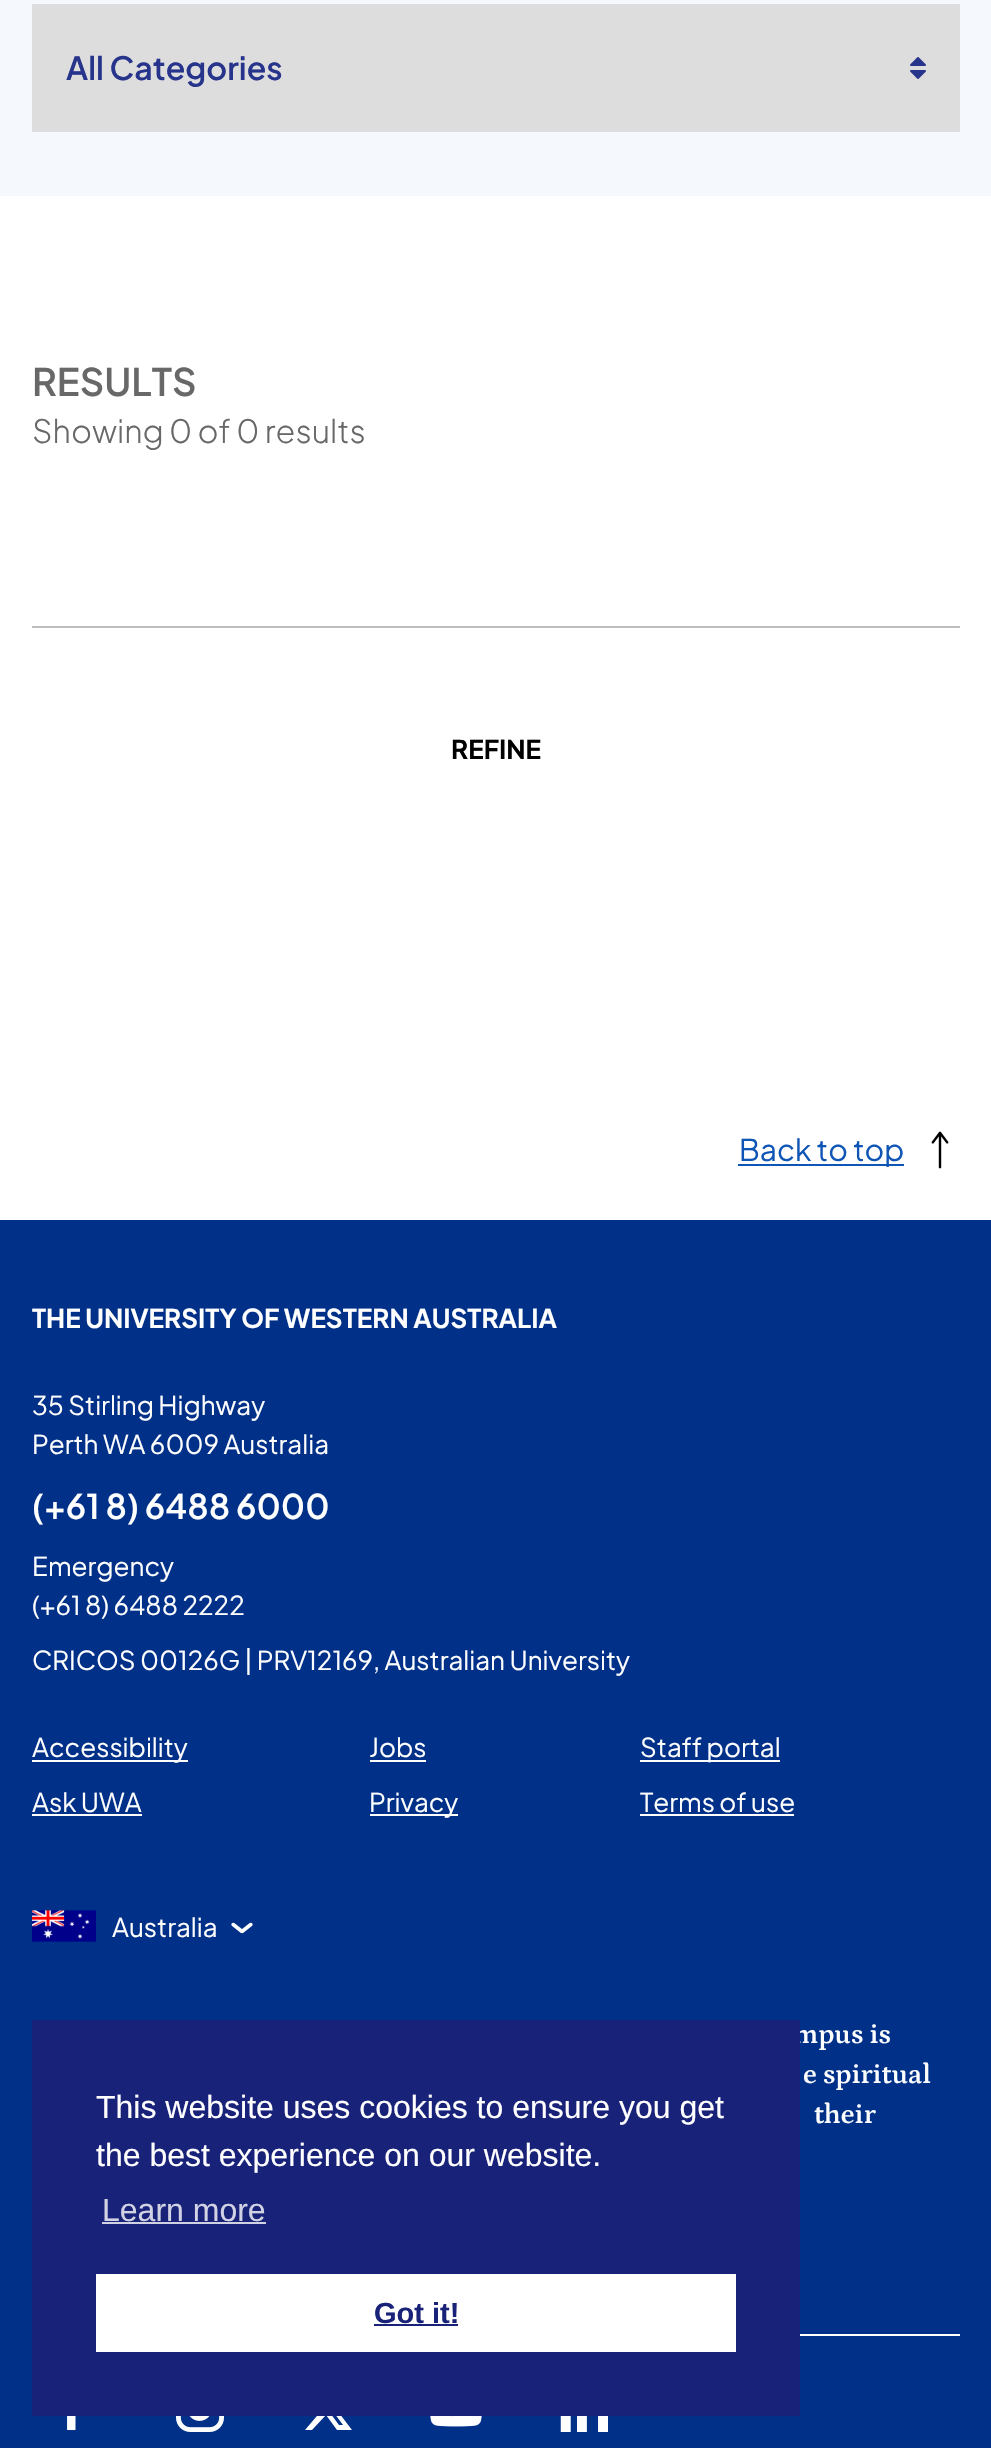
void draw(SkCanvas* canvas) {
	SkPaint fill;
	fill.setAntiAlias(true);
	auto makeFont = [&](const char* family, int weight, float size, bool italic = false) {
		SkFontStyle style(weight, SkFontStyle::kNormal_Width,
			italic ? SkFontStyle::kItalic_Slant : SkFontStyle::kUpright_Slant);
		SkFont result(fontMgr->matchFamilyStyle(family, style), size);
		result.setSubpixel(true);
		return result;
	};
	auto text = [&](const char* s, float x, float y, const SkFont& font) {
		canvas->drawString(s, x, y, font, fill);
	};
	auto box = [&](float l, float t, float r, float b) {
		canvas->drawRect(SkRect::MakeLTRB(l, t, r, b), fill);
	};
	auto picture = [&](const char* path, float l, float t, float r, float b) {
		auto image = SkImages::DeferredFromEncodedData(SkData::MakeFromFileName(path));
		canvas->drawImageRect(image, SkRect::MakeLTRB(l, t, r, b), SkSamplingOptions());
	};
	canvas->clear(0xFFFFFFFF);
	fill.setColor(0xFFF5F8FC);
	box(0, 0, 991, 196);
	fill.setColor(0xFFDDDDDD);
	box(32, 4, 960, 132);
	picture("image0.png", 910, 57, 926, 79);
	fill.setColor(0xFFBEBEBE);
	box(32, 626, 960, 628);
	picture("image1.png", 931, 1131, 949, 1169);
	fill.setColor(0xFF0E55B5);
	box(738, 1164, 904, 1166);
	fill.setColor(0xFF003087);
	box(0, 1220, 991, 2448);
	fill.setColor(0xFFFFFFFF);
	box(32, 1760, 188, 1762);
	box(370, 1760, 426, 1762);
	box(640, 1760, 780, 1762);
	box(32, 1814, 142, 1816);
	box(370, 1814, 458, 1816);
	box(640, 1814, 794, 1816);
	picture("image2.png", 32, 1910, 96, 1942);
	picture("image3.png", 231, 1922, 253, 1934);
	box(800, 2334, 960, 2336);
	picture("image4.png", 67, 2416, 76, 2430);
	picture("image5.png", 176, 2416, 224, 2432);
	canvas->drawPath(SkPathBuilder().moveTo(342, 2386).lineTo(349, 2386).lineTo(333, 2405).lineTo(352, 2430).lineTo(337, 2430).lineTo(326, 2415).lineTo(312, 2430).lineTo(305, 2430).lineTo(322, 2410).lineTo(304, 2386).lineTo(319, 2386).lineTo(330, 2400).close().moveTo(339, 2425).lineTo(343, 2425).lineTo(317, 2390).lineTo(313, 2390).close().detach(), fill);
	picture("image6.png", 430, 2416, 482, 2427);
	picture("image7.png", 560, 2416, 608, 2432);
	auto font1 = makeFont("Plus Jakarta Sans", 600, 32);
	fill.setColor(0xFF27348B);
	text("All Categories", 66, 80, font1);
	auto font2 = makeFont("Plus Jakarta Sans", 600, 38);
	fill.setColor(0xFF686868);
	text("RESULTS", 32, 396, font2);
	auto font3 = makeFont("Plus Jakarta Sans", 300, 32);
	text("Showing 0 of 0 results", 32, 443, font3);
	auto font4 = makeFont("Plus Jakarta Sans", 700, 26);
	fill.setColor(0xFF000000);
	text("REFINE", 451, 759, font4);
	auto font5 = makeFont("Plus Jakarta Sans", 400, 30);
	fill.setColor(0xFF0E55B5);
	text("Back to top", 739, 1161, font5);
	fill.setColor(0xFFFFFFFF);
	text("THE UNIVERSITY OF WESTERN AUSTRALIA", 32, 1328, font4);
	auto font6 = makeFont("Plus Jakarta Sans", 400, 26);
	text("35 Stirling Highway", 32, 1415, font6);
	text("Perth WA 6009 Australia", 32, 1454, font6);
	auto font7 = makeFont("Plus Jakarta Sans", 600, 34);
	text("(+61 8) 6488 6000", 32, 1519, font7);
	text("Emergency", 32, 1576, font6);
	text("(+61 8) 6488 2222", 32, 1615, font6);
	text("CRICOS 00126G | PRV12169, Australian University", 32, 1670, font6);
	text("Accessibility", 32, 1757, font6);
	text("Jobs", 369, 1757, font6);
	text("Staff portal", 640, 1757, font6);
	text("Ask UWA", 32, 1812, font6);
	text("Privacy", 369, 1812, font6);
	text("Terms of use", 640, 1812, font6);
	text("Australia", 112, 1937, font6);
	auto font8 = makeFont("Petrona", 600, 28, true);
	text("mpus is", 793, 2043, font8);
	text("e spiritual", 803, 2083, font8);
	text("their", 814, 2123, font8);
	fill.setColor(0xFF182278);
	box(32, 2020, 800, 2416);
	auto font9 = makeFont("Liberation Sans", 400, 32);
	fill.setColor(0xFFFFFFFF);
	text("This website uses cookies to ensure you get", 96, 2118, font9);
	text("the best experience on our website.", 96, 2166, font9);
	fill.setColor(0xFFD1D3E4);
	text("Learn more", 102, 2221, font9);
	box(102, 2222, 266, 2224);
	fill.setColor(0xFFFFFFFF);
	box(96, 2274, 736, 2352);
	auto font10 = makeFont("Liberation Sans", 700, 29);
	fill.setColor(0xFF182278);
	text("Got it!", 374, 2323, font10);
	box(374, 2324, 458, 2326);
}
